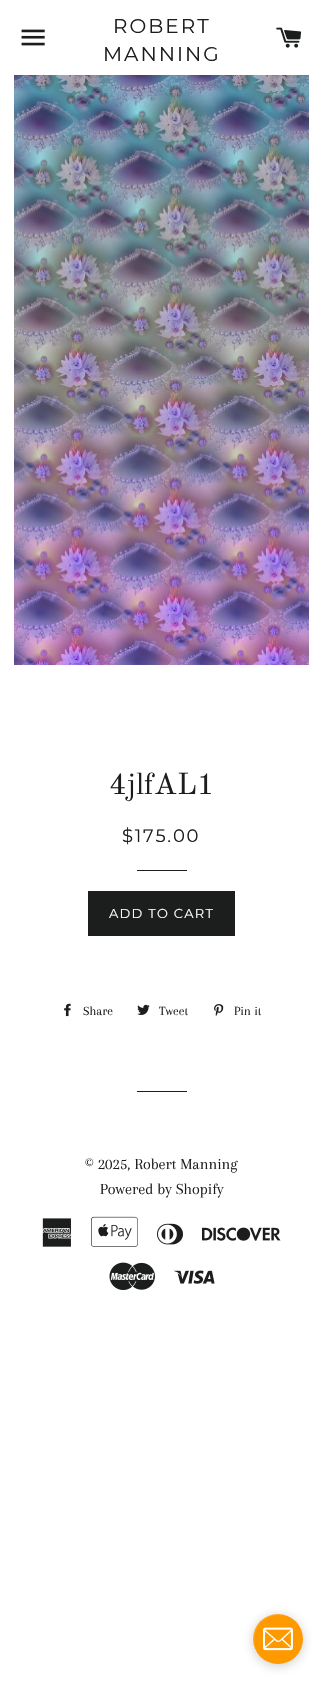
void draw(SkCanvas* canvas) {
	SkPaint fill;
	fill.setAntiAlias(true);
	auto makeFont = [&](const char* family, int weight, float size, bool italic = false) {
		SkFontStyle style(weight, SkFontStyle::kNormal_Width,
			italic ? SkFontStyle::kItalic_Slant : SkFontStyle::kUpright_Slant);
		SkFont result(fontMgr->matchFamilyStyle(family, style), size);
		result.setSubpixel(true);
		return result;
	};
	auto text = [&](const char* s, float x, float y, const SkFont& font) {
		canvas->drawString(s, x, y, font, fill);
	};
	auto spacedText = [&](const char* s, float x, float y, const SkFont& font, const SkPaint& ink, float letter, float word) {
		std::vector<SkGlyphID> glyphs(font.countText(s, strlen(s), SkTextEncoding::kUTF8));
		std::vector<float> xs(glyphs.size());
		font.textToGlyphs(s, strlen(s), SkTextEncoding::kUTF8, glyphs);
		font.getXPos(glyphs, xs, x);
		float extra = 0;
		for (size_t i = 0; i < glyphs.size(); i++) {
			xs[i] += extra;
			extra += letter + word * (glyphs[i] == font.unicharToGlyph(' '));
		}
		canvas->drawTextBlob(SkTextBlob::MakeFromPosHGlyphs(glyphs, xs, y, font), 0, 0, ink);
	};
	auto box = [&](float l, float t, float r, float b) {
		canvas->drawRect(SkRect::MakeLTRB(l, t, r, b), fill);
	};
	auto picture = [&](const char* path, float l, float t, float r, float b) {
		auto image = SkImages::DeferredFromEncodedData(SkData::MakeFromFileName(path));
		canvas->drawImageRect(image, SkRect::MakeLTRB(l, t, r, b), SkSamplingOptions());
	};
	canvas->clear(0xFFFFFFFF);
	picture("image0.png", 21, 29, 45, 46);
	picture("image1.png", 276, 27, 302, 48);
	picture("image2.png", 14, 75, 309, 665);
	fill.setColor(0xFF1C1D1D);
	box(137, 870, 187, 871);
	box(88, 891, 235, 936);
	picture("image3.png", 64, 1003, 71, 1017);
	picture("image4.png", 137, 1004, 150, 1015);
	picture("image5.png", 214, 1004, 224, 1016);
	box(137, 1091, 187, 1092);
	picture("image6.png", 42, 1218, 72, 1247);
	picture("image7.png", 91, 1216, 138, 1247);
	picture("image8.png", 157, 1223, 183, 1245);
	picture("image9.png", 202, 1227, 281, 1241);
	picture("image10.png", 109, 1262, 155, 1291);
	picture("image11.png", 174, 1270, 215, 1284);
	fill.setColor(0x66808080);
	fill.setMaskFilter(SkMaskFilter::MakeBlur(kNormal_SkBlurStyle, 5.5f));
	canvas->drawRoundRect(SkRect::MakeLTRB(253, 1616, 303, 1666), 25, 25, fill);
	fill.setMaskFilter(nullptr);
	fill.setColor(0xFFFF9900);
	canvas->drawCircle(278, 1639, 25, fill);
	fill.setColor(0x26FFFFFF);
	canvas->drawPath(SkPathBuilder().moveTo(279, 1615).cubicTo(284, 1615, 288, 1616, 292, 1618).cubicTo(268, 1603, 241, 1633, 258, 1655).cubicTo(249, 1640, 256, 1615, 279, 1615).close().detach(), fill);
	picture("image12.png", 263, 1627, 293, 1651);
	auto font1 = makeFont("Montserrat", 100, 20);
	fill.setColor(0xFF1C1D1D);
	spacedText("ROBERT", 113, 33, font1, fill, 2, 0);
	spacedText("MANNING", 103, 61, font1, fill, 2, 0);
	auto font2 = makeFont("Old Standard TT", 400, 30);
	text("4jlfAL1", 109, 794, font2);
	auto font3 = makeFont("Montserrat", 100, 18);
	spacedText("$175.00", 122, 842, font3, fill, 1.75f, 0);
	auto font4 = makeFont("Montserrat", 100, 13);
	fill.setColor(0xFFFFFFFF);
	spacedText("ADD TO CART", 109, 918, font4, fill, 1.25f, 0);
	auto font5 = makeFont("Arapey", 400, 13);
	fill.setColor(0xFF1C1D1D);
	text("Share", 83, 1015, font5);
	text("Tweet", 159, 1015, font5);
	text("Pin it", 234, 1015, font5);
	auto font6 = makeFont("Arapey", 400, 16);
	text("© 2025, Robert Manning", 85, 1169, font6);
	text("Powered by Shopify", 100, 1194, font6);
}
